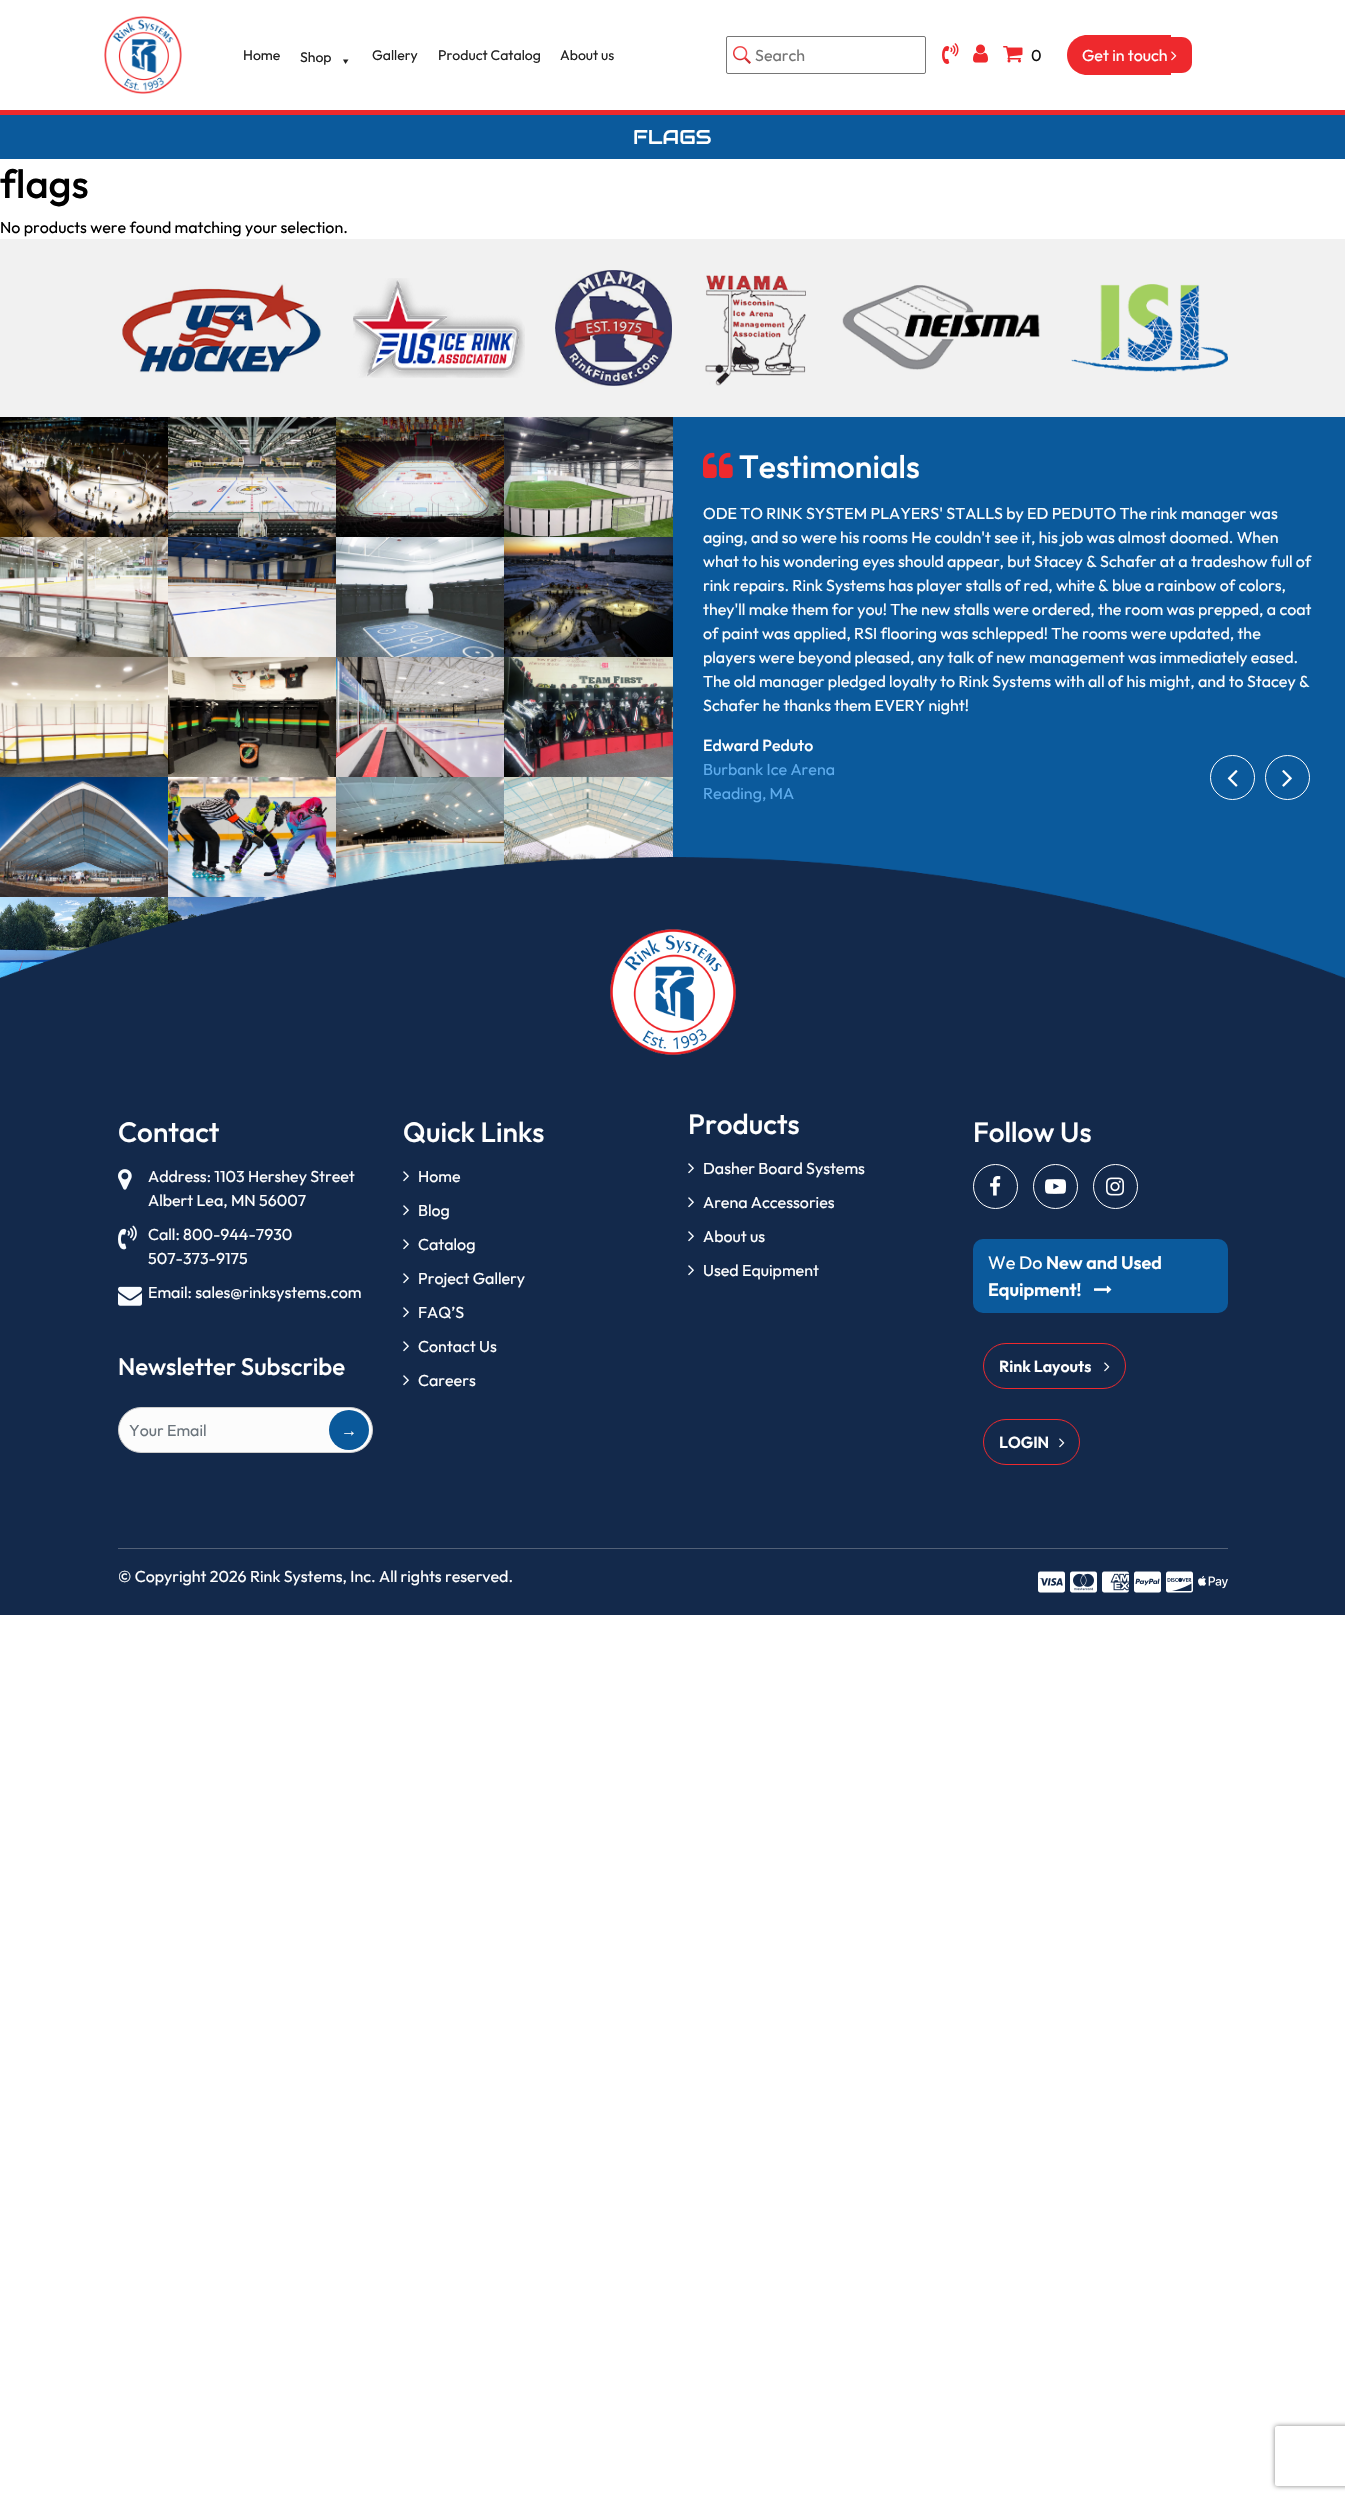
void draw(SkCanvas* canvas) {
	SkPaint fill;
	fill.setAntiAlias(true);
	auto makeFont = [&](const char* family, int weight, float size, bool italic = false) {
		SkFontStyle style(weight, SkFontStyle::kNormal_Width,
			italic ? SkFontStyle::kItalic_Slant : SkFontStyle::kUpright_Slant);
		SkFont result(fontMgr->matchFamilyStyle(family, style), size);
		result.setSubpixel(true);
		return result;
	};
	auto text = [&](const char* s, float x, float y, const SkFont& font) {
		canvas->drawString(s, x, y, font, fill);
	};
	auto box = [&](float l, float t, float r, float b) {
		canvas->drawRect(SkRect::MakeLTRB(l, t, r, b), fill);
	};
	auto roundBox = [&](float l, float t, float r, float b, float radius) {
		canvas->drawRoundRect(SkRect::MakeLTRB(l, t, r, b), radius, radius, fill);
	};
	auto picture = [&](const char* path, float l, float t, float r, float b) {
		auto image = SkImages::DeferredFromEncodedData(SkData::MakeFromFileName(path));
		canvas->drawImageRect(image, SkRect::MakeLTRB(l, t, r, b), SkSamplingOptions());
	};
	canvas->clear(0xFFFFFFFF);
	fill.setColor(0xFFEE292D);
	box(0, 110, 1345, 115);
	picture("image0.png", 104, 16, 182, 94);
	fill.setColor(0xFF222222);
	canvas->drawPath(SkPathBuilder().moveTo(348.5f, 59.5f).lineTo(345.5f, 64).lineTo(343, 59.5f).close().detach(), fill);
	fill.setStyle(SkPaint::kStroke_Style);
	fill.setStrokeWidth(1);
	fill.setColor(0xFF767676);
	canvas->drawRoundRect(SkRect::MakeLTRB(726.5f, 36.5f, 925.5f, 73.5f), 1.5f, 1.5f, fill);
	picture("image1.png", 733, 46, 751, 64);
	picture("image2.png", 942, 43, 959, 64);
	picture("image3.png", 973, 44, 988, 63);
	picture("image4.png", 1003, 46, 1023, 63);
	fill.setStyle(SkPaint::kFill_Style);
	fill.setColor(0xFFEE292D);
	canvas->drawPath(SkPathBuilder().moveTo(1087, 35).lineTo(1171, 35).lineTo(1171, 75).lineTo(1087, 75).cubicTo(1076, 75, 1067, 66, 1067, 55).cubicTo(1067, 44, 1076, 35, 1087, 35).close().detach(), fill);
	canvas->drawPath(SkPathBuilder().moveTo(1171, 37).lineTo(1181.5f, 37).cubicTo(1187.5f, 37, 1192, 41.5f, 1192, 47.5f).lineTo(1192, 62.5f).cubicTo(1192, 68.5f, 1187.5f, 73, 1181.5f, 73).lineTo(1171, 73).close().detach(), fill);
	picture("image5.png", 1171, 51, 1177, 61);
	fill.setColor(0xFF0B5A9C);
	box(0, 115, 1345, 159);
	fill.setColor(0xFFF1F1F1);
	box(0, 239, 1345, 417);
	picture("image6.png", 122, 283, 322, 373);
	picture("image7.png", 353, 278, 525, 378);
	picture("image8.png", 555, 270, 672, 386);
	picture("image9.png", 705, 275, 806, 386);
	picture("image10.png", 842, 285, 1040, 370);
	picture("image11.png", 1071, 284, 1228, 372);
	fill.setColor(0xFF0B5A9C);
	box(673, 417, 1345, 978);
	picture("image12.png", 0, 417, 168, 537);
	picture("image13.png", 168, 417, 336, 537);
	picture("image14.png", 336, 417, 504, 537);
	picture("image15.png", 504, 417, 673, 537);
	picture("image16.png", 0, 537, 168, 657);
	picture("image17.png", 168, 537, 336, 657);
	picture("image18.png", 336, 537, 504, 657);
	picture("image19.png", 504, 537, 673, 657);
	picture("image20.png", 0, 657, 168, 777);
	picture("image21.png", 168, 657, 336, 777);
	picture("image22.png", 336, 657, 504, 777);
	picture("image23.png", 504, 657, 673, 777);
	picture("image24.png", 0, 777, 168, 897);
	picture("image25.png", 168, 777, 336, 897);
	picture("image26.png", 336, 777, 504, 887);
	picture("image27.png", 504, 777, 673, 865);
	picture("image28.png", 0, 897, 168, 978);
	picture("image29.png", 168, 897, 282, 924);
	picture("image30.png", 703, 452, 733, 478);
	fill.setStyle(SkPaint::kStroke_Style);
	fill.setColor(0xFFFFFFFF);
	canvas->drawCircle(1232.5f, 777.5f, 22, fill);
	picture("image31.png", 1227, 770, 1238, 787);
	canvas->drawCircle(1287.5f, 777.5f, 22, fill);
	picture("image32.png", 1282, 770, 1292, 787);
	fill.setStyle(SkPaint::kFill_Style);
	fill.setColor(0xFF13294B);
	box(0, 1017, 1345, 1615);
	picture("image33.png", 0, 857, 1345, 1017);
	picture("image34.png", 610, 929, 736, 1055);
	picture("image35.png", 118, 1169, 132, 1190);
	picture("image36.png", 118, 1225, 137, 1250);
	picture("image37.png", 118, 1286, 142, 1306);
	fill.setColor(0xFFFCFCFC);
	canvas->drawRoundRect(SkRect::MakeLTRB(118.5f, 1407.5f, 372.5f, 1452.5f), 22.5f, 22.5f, fill);
	fill.setStyle(SkPaint::kStroke_Style);
	fill.setColor(0xFFCCCCCC);
	canvas->drawRoundRect(SkRect::MakeLTRB(118.5f, 1407.5f, 372.5f, 1452.5f), 22.5f, 22.5f, fill);
	fill.setStyle(SkPaint::kFill_Style);
	fill.setColor(0xFF0A599B);
	canvas->drawCircle(349, 1430, 20, fill);
	picture("image38.png", 403, 1171, 409, 1182);
	picture("image38.png", 403, 1205, 409, 1216);
	picture("image38.png", 403, 1239, 409, 1250);
	picture("image38.png", 403, 1273, 409, 1284);
	picture("image38.png", 403, 1307, 409, 1318);
	picture("image38.png", 403, 1341, 409, 1352);
	picture("image38.png", 403, 1375, 409, 1386);
	picture("image38.png", 688, 1163, 694, 1174);
	picture("image38.png", 688, 1197, 694, 1208);
	picture("image38.png", 688, 1231, 694, 1242);
	picture("image38.png", 688, 1265, 694, 1276);
	fill.setStyle(SkPaint::kStroke_Style);
	fill.setColor(0xFFFFFFFF);
	canvas->drawCircle(995.5f, 1186.5f, 22, fill);
	picture("image39.png", 990, 1176, 1001, 1196);
	canvas->drawCircle(1055.5f, 1186.5f, 22, fill);
	picture("image40.png", 1045, 1179, 1066, 1194);
	canvas->drawCircle(1115.5f, 1186.5f, 22, fill);
	picture("image41.png", 1106, 1177, 1124, 1196);
	fill.setStyle(SkPaint::kFill_Style);
	fill.setColor(0xFF0B5A9C);
	roundBox(973, 1239, 1228, 1313, 10);
	picture("image42.png", 1094, 1285, 1112, 1294);
	fill.setStyle(SkPaint::kStroke_Style);
	fill.setColor(0xFFEE292D);
	canvas->drawRoundRect(SkRect::MakeLTRB(983.5f, 1343.5f, 1125.5f, 1388.5f), 22.5f, 22.5f, fill);
	picture("image43.png", 1104, 1362, 1110, 1372);
	canvas->drawRoundRect(SkRect::MakeLTRB(983.5f, 1419.5f, 1079.5f, 1464.5f), 22.5f, 22.5f, fill);
	picture("image43.png", 1059, 1438, 1065, 1448);
	fill.setStyle(SkPaint::kFill_Style);
	fill.setColor(0xFF526077);
	box(118, 1548, 1228, 1549);
	picture("image44.png", 1038, 1571, 1065, 1593);
	picture("image45.png", 1070, 1571, 1097, 1593);
	picture("image46.png", 1102, 1571, 1129, 1593);
	picture("image47.png", 1134, 1571, 1161, 1593);
	picture("image48.png", 1166, 1571, 1193, 1593);
	picture("image49.png", 1198, 1575, 1228, 1589);
	canvas->save();
	canvas->clipPath(SkPathBuilder(SkPathFillType::kEvenOdd).moveTo(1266, 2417).lineTo(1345, 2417).lineTo(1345, 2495).lineTo(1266, 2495).close().moveTo(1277, 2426).lineTo(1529, 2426).cubicTo(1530, 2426, 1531, 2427, 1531, 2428).lineTo(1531, 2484).cubicTo(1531, 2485, 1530, 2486, 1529, 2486).lineTo(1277, 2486).cubicTo(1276, 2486, 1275, 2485, 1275, 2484).lineTo(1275, 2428).cubicTo(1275, 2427, 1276, 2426, 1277, 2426).close().detach(), true);
	fill.setColor(0xFF808080);
	fill.setMaskFilter(SkMaskFilter::MakeBlur(kNormal_SkBlurStyle, 2.5f));
	canvas->drawRoundRect(SkRect::MakeLTRB(1275, 2426, 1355, 2486), 2, 2, fill);
	fill.setMaskFilter(nullptr);
	canvas->restore();
	auto font1 = makeFont("Outfit", 400, 14);
	fill.setColor(0xFF222222);
	text("Home", 243, 60, font1);
	text("Shop", 300, 62, font1);
	text("Gallery", 372, 60, font1);
	text("Product Catalog", 438, 60, font1);
	text("About us", 560, 60, font1);
	auto font2 = makeFont("Outfit", 400, 16);
	fill.setColor(0xFF757575);
	text("Search", 755, 61, font2);
	fill.setColor(0xFF111111);
	text("0", 1031, 61, font2);
	fill.setColor(0xFFFFFFFF);
	text("Get in touch", 1082, 61, font2);
	auto font3 = makeFont("Audiowide", 400, 20);
	text("FLAGS", 633, 144, font3);
	auto font4 = makeFont("Outfit", 500, 40);
	fill.setColor(0xFF000000);
	text("flags", 0, 198, font4);
	text("No products were found matching your selection.", 0, 233, font2);
	auto font5 = makeFont("Outfit", 500, 32);
	fill.setColor(0xFFFFFFFF);
	text("Testimonials", 739, 478, font5);
	text("ODE TO RINK SYSTEM PLAYERS' STALLS by ED PEDUTO The rink manager was", 703, 519, font2);
	text("aging, and so were his rooms He couldn't see it, his job was almost doomed. When", 703, 543, font2);
	text("what to his wondering eyes should appear, but Stacey & Schafer at a tradeshow full of", 703, 567, font2);
	text("rink repairs. Rink Systems has player stalls of red, white & blue a rainbow of colors,", 703, 591, font2);
	text("they'll make them for you! The new stalls were ordered, the room was prepped, a coat", 703, 615, font2);
	text("of paint was applied, RSI flooring was schlepped! The rooms were updated, the", 703, 639, font2);
	text("players were beyond pleased, any talk of new management was immediately eased.", 703, 663, font2);
	text("The old manager pledged loyalty to Rink Systems with all of his might, and to Stacey &", 703, 687, font2);
	text("Schafer he thanks them EVERY night!", 703, 711, font2);
	auto font6 = makeFont("Outfit", 500, 16);
	text("Edward Peduto", 703, 751, font6);
	fill.setColor(0xFF5EACED);
	text("Burbank Ice Arena", 703, 775, font2);
	text("Reading, MA", 703, 799, font2);
	auto font7 = makeFont("Outfit", 500, 28);
	fill.setColor(0xFFFFFFFF);
	text("Contact", 118, 1142, font7);
	text("Address: 1103 Hershey Street", 148, 1182, font2);
	text("Albert Lea, MN 56007", 148, 1206, font2);
	text("Call: 800-944-7930", 148, 1240, font2);
	text("507-373-9175", 148, 1264, font2);
	text("Email: sales@rinksystems.com", 148, 1298, font2);
	auto font8 = makeFont("Outfit", 500, 24);
	text("Newsletter Subscribe", 118, 1375, font8);
	fill.setColor(0xFF6C757D);
	text("Your Email", 129, 1436, font2);
	auto font9 = makeFont("Liberation Sans", 400, 16);
	fill.setColor(0xFFFFFFFF);
	text("→", 341, 1436, font9);
	text("Quick Links", 403, 1142, font7);
	text("Home", 418, 1182, font2);
	text("Blog", 418, 1216, font2);
	text("Catalog", 418, 1250, font2);
	text("Project Gallery", 418, 1284, font2);
	text("FAQ’S", 418, 1318, font2);
	text("Contact Us", 418, 1352, font2);
	text("Careers", 418, 1386, font2);
	text("Products", 688, 1134, font7);
	text("Dasher Board Systems", 703, 1174, font2);
	text("Arena Accessories", 703, 1208, font2);
	text("About us", 703, 1242, font2);
	text("Used Equipment", 703, 1276, font2);
	text("Follow Us", 973, 1142, font7);
	auto font10 = makeFont("Outfit", 400, 18);
	text("We Do", 988, 1269, font10);
	auto font11 = makeFont("Outfit", 600, 18);
	text("New and Used", 1046, 1269, font11);
	text("Equipment!", 988, 1296, font11);
	auto font12 = makeFont("Outfit", 600, 16);
	text("Rink Layouts", 999, 1372, font12);
	text("LOGIN", 999, 1448, font12);
	text("© Copyright 2026 Rink Systems, Inc. All rights reserved.", 118, 1582, font2);
}
